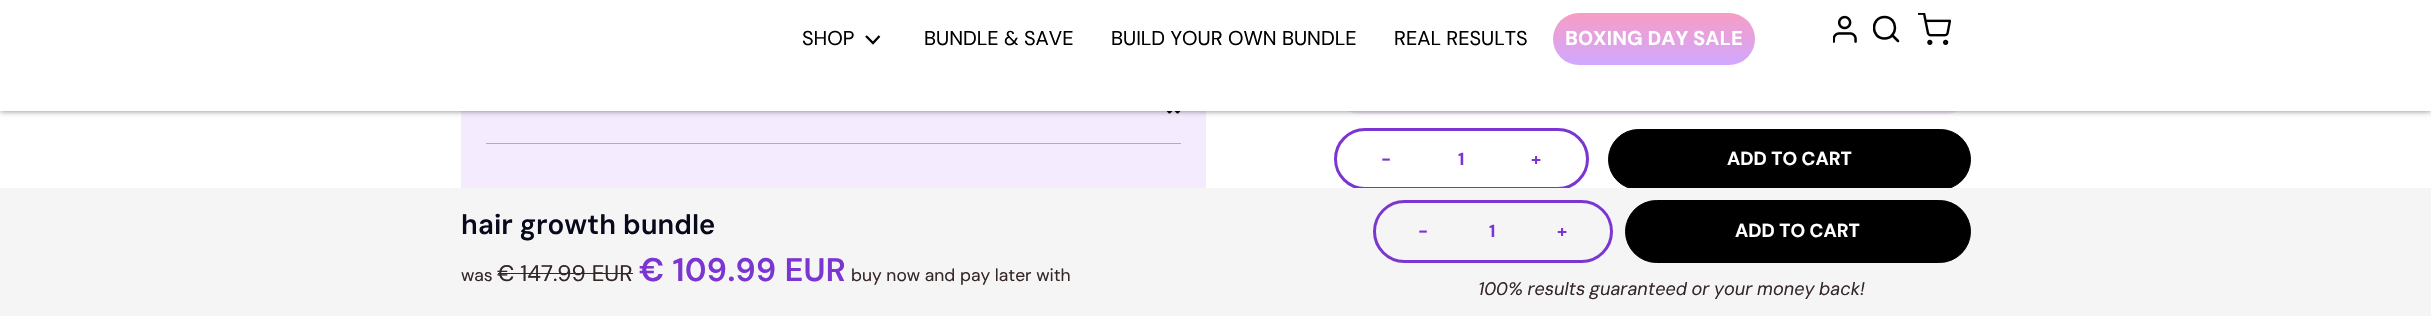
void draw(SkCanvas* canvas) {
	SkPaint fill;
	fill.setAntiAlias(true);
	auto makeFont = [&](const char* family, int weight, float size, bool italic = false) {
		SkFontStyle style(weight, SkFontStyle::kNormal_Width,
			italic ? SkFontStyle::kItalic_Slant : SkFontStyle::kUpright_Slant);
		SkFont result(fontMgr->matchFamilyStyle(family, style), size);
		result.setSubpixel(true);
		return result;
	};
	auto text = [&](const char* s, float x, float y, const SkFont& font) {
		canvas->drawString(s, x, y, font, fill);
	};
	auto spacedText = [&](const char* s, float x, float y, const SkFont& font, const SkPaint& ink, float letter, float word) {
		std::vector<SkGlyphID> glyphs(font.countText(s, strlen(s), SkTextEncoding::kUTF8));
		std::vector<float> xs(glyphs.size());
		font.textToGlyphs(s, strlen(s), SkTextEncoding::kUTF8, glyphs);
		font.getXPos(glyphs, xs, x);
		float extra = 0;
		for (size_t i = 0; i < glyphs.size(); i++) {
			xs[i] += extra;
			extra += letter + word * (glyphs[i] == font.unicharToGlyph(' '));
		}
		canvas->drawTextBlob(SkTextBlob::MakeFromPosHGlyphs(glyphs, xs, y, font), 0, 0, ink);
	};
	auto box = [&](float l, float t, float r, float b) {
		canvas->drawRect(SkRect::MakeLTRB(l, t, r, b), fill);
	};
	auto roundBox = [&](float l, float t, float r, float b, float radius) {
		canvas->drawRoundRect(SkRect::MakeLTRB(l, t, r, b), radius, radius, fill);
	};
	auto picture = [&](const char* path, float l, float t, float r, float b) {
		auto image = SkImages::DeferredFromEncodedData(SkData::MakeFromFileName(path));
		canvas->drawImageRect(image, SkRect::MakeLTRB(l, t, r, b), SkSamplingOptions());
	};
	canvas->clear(0xFFFFFFFF);
	fill.setColor(0xFFF5EBFF);
	box(461, 111, 1206, 188);
	picture("image2.png", 1166, 111, 1181, 114);
	fill.setColor(0xFFF5EAFF);
	canvas->drawRoundRect(SkRect::MakeLTRB(1334.5f, 63.5f, 1970.5f, 113.5f), 25, 25, fill);
	fill.setStyle(SkPaint::kStroke_Style);
	fill.setStrokeWidth(1);
	canvas->drawRoundRect(SkRect::MakeLTRB(1334.5f, 63.5f, 1970.5f, 113.5f), 25, 25, fill);
	fill.setStyle(SkPaint::kFill_Style);
	fill.setColor(0x80000000);
	fill.setMaskFilter(SkMaskFilter::MakeBlur(kNormal_SkBlurStyle, 3));
	canvas->drawRect(SkRect::MakeLTRB(0, -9, 2431, 111), fill);
	fill.setMaskFilter(nullptr);
	fill.setColor(0xFFFFFFFF);
	box(0, 0, 2431, 111);
	fill.setStyle(SkPaint::kStroke_Style);
	fill.setStrokeWidth(2.3f);
	fill.setColor(0xFF000000);
	canvas->drawPath(SkPathBuilder().moveTo(866, 36).lineTo(873, 43).lineTo(879.5f, 36).detach(), fill);
	fill.setStyle(SkPaint::kFill_Style);
	{
		const SkColor colors[] = {0xFFF79DC4, 0xFFD0A8FF};
		const float stops[] = {0, 1};
		const SkPoint ends[] = {{1654, 13}, {1654, 65}};
		fill.setShader(SkGradientShader::MakeLinear(ends, colors, stops, 2, SkTileMode::kClamp));
		fill.setAlpha(255);
	}
	roundBox(1553, 13, 1755, 65, 26);
	picture("image0.png", 1833, 15, 1857, 43);
	canvas->save();
	canvas->clipRect(SkRect::MakeLTRB(1873, 13, 1899, 45));
	fill.setStyle(SkPaint::kStroke_Style);
	fill.setStrokeWidth(2.5f);
	fill.setStrokeJoin(SkPaint::kRound_Join);
	fill.setShader(nullptr);
	fill.setColor(0xFF000000);
	canvas->drawPath(SkPathBuilder().moveTo(1884.5f, 38.5f).cubicTo(1870.5f, 38.5f, 1870.5f, 17, 1884.5f, 17).cubicTo(1898.5f, 17, 1898.5f, 38.5f, 1884.5f, 38.5f).close().detach(), fill);
	canvas->restore();
	fill.setStrokeCap(SkPaint::kRound_Cap);
	canvas->drawPath(SkPathBuilder().moveTo(1898, 41).lineTo(1892, 35).detach(), fill);
	picture("image1.png", 1918, 13, 1951, 45);
	fill.setStyle(SkPaint::kFill_Style);
	fill.setColor(0xFFBF9DE9);
	box(486, 143, 1181, 144);
	fill.setStyle(SkPaint::kStroke_Style);
	fill.setStrokeWidth(3);
	fill.setStrokeCap(SkPaint::kButt_Cap);
	fill.setStrokeJoin(SkPaint::kMiter_Join);
	fill.setColor(0xFF7B35D1);
	canvas->drawRoundRect(SkRect::MakeLTRB(1335.5f, 129.5f, 1587.5f, 188.5f), 29.5f, 29.5f, fill);
	fill.setStyle(SkPaint::kFill_Style);
	fill.setColor(0xFF000000);
	canvas->drawRoundRect(SkRect::MakeLTRB(1608.5f, 129.5f, 1970.5f, 189.5f), 30, 30, fill);
	fill.setStyle(SkPaint::kStroke_Style);
	fill.setStrokeWidth(1);
	canvas->drawRoundRect(SkRect::MakeLTRB(1608.5f, 129.5f, 1970.5f, 189.5f), 30, 30, fill);
	fill.setStyle(SkPaint::kFill_Style);
	fill.setColor(0xFFF5F5F5);
	box(0, 188, 2431, 316);
	fill.setColor(0xFF352728);
	box(498, 273, 633, 274);
	fill.setStyle(SkPaint::kStroke_Style);
	fill.setStrokeWidth(3);
	fill.setColor(0xFF7B35D1);
	canvas->drawRoundRect(SkRect::MakeLTRB(1374.5f, 201.5f, 1611.5f, 261.5f), 30, 30, fill);
	fill.setStyle(SkPaint::kFill_Style);
	fill.setColor(0xFF000000);
	canvas->drawRoundRect(SkRect::MakeLTRB(1625.5f, 200.5f, 1970.5f, 262.5f), 31, 31, fill);
	fill.setStyle(SkPaint::kStroke_Style);
	fill.setStrokeWidth(1);
	canvas->drawRoundRect(SkRect::MakeLTRB(1625.5f, 200.5f, 1970.5f, 262.5f), 31, 31, fill);
	auto font1 = makeFont("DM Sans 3", 400, 20);
	fill.setStyle(SkPaint::kFill_Style);
	text("SHOP", 802, 45, font1);
	text("BUNDLE & SAVE", 924, 45, font1);
	text("BUILD YOUR OWN BUNDLE", 1111, 45, font1);
	text("REAL RESULTS", 1394, 45, font1);
	auto font2 = makeFont("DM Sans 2", 700, 20);
	fill.setColor(0xFFFFFFFF);
	text("BOXING DAY SALE", 1565, 45, font2);
	auto font3 = makeFont("DM Sans 2", 700, 17.5f);
	fill.setColor(0xFF7B35D1);
	text("-", 1381, 165, font3);
	auto font4 = makeFont("DM Sans", 700, 17.5f);
	text("1", 1458, 165, font4);
	text("+", 1531, 165, font3);
	auto font5 = makeFont("DM Sans 3", 700, 18.75f);
	fill.setColor(0xFFFFFFFF);
	text("ADD TO CART", 1727, 165, font5);
	auto font6 = makeFont("DM Sans", 600, 27.5f);
	fill.setColor(0xFF080A1C);
	text("hair growth bundle", 461, 234, font6);
	auto font7 = makeFont("DM Sans", 400, 17.5f);
	fill.setColor(0xFF352728);
	text("was", 461, 281, font7);
	auto font8 = makeFont("DM Sans 2", 400, 22.5f);
	text("€ 147.99 EUR", 497, 281, font8);
	auto font9 = makeFont("DM Sans", 600, 32.5f);
	fill.setColor(0xFF7B35D1);
	text("€ 109.99 EUR", 639, 281, font9);
	fill.setColor(0xFF352728);
	text("buy now and pay later with", 851, 281, font7);
	fill.setColor(0xFF7B35D1);
	text("-", 1418, 237, font3);
	text("1", 1489, 237, font4);
	text("+", 1557, 237, font3);
	fill.setColor(0xFFFFFFFF);
	text("ADD TO CART", 1735, 237, font5);
	auto font10 = makeFont("DM Sans", 400, 18.1f, true);
	fill.setColor(0xFF352728);
	spacedText("100% results guaranteed or your money back!", 1478, 295, font10, fill, 0, -0.25f);
}
